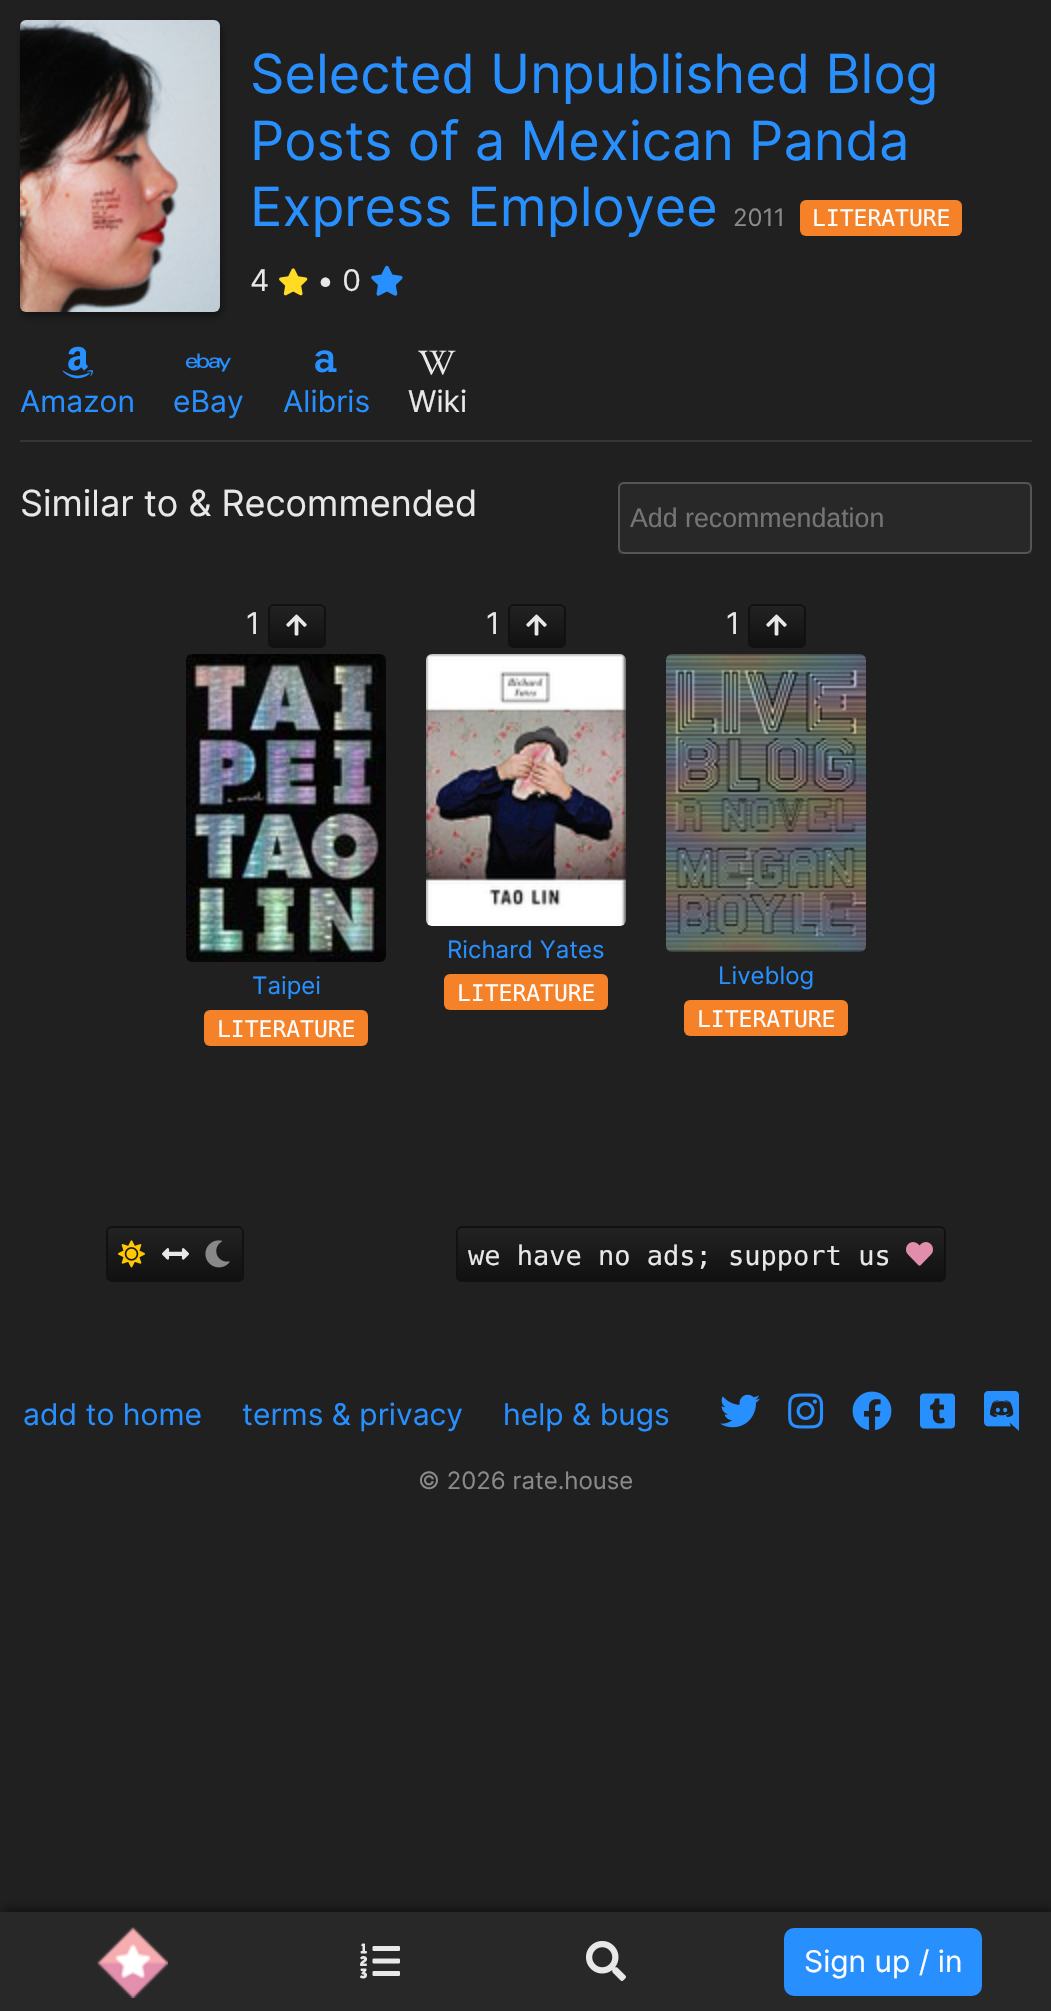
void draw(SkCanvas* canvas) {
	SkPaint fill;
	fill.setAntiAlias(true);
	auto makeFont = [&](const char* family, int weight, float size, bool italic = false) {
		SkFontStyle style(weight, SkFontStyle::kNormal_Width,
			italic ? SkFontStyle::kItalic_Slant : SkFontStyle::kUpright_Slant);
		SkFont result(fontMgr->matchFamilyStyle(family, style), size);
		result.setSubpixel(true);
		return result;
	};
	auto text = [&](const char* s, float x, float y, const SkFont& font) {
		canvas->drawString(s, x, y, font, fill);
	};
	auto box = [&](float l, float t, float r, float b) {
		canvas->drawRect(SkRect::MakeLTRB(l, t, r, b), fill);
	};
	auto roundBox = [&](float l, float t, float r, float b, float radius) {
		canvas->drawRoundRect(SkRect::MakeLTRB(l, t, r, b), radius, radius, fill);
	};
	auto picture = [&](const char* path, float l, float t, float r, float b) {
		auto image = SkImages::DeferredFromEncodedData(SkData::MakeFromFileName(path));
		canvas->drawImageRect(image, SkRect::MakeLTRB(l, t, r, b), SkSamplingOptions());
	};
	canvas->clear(0xFF202020);
	fill.setColor(0xFF111111);
	fill.setMaskFilter(SkMaskFilter::MakeBlur(kNormal_SkBlurStyle, 5));
	canvas->drawRoundRect(SkRect::MakeLTRB(22, 24, 222, 316), 6, 6, fill);
	fill.setMaskFilter(nullptr);
	picture("image0.png", 20, 20, 220, 312);
	fill.setColor(0xFFF58128);
	roundBox(800, 200, 962, 236, 6);
	picture("image1.png", 279, 268, 308, 296);
	picture("image2.png", 371, 265, 403, 296);
	picture("image3.png", 62, 346, 93, 379);
	picture("image4.png", 186, 353, 231, 372);
	picture("image5.png", 315, 350, 337, 373);
	picture("image6.png", 418, 350, 456, 375);
	fill.setColor(0xFF353535);
	box(20, 440, 1032, 442);
	fill.setColor(0xFF282828);
	box(618, 482, 1032, 554);
	fill.setStyle(SkPaint::kStroke_Style);
	fill.setStrokeWidth(2);
	fill.setColor(0xFF555555);
	canvas->drawRoundRect(SkRect::MakeLTRB(619, 483, 1031, 553), 5, 5, fill);
	canvas->save();
	canvas->clipPath(SkPathBuilder().moveTo(274, 604).lineTo(320, 604).cubicTo(323.5f, 604, 326, 606.5f, 326, 610).lineTo(326, 642).cubicTo(326, 645.5f, 323.5f, 648, 320, 648).lineTo(274, 648).cubicTo(270.5f, 648, 268, 645.5f, 268, 642).lineTo(268, 610).cubicTo(268, 606.5f, 270.5f, 604, 274, 604).close().detach(), true);
	fill.setStyle(SkPaint::kFill_Style);
	{
		const SkColor colors[] = {0xFF222222, 0xFF111111};
		const float stops[] = {0, 1};
		const SkPoint ends[] = {{297, 606}, {297, 646}};
		fill.setShader(SkGradientShader::MakeLinear(ends, colors, stops, 2, SkTileMode::kClamp));
		fill.setAlpha(255);
	}
	box(268, 606, 326, 646);
	canvas->restore();
	fill.setStyle(SkPaint::kStroke_Style);
	fill.setShader(nullptr);
	fill.setColor(0xFF111111);
	canvas->drawRoundRect(SkRect::MakeLTRB(269, 605, 325, 647), 5, 5, fill);
	picture("image7.png", 286, 614, 307, 636);
	picture("image8.png", 186, 654, 386, 962);
	fill.setStyle(SkPaint::kFill_Style);
	fill.setColor(0xFFF58128);
	roundBox(204, 1010, 368, 1046, 6);
	canvas->save();
	canvas->clipPath(SkPathBuilder().moveTo(514, 604).lineTo(560, 604).cubicTo(563.5f, 604, 566, 606.5f, 566, 610).lineTo(566, 642).cubicTo(566, 645.5f, 563.5f, 648, 560, 648).lineTo(514, 648).cubicTo(510.5f, 648, 508, 645.5f, 508, 642).lineTo(508, 610).cubicTo(508, 606.5f, 510.5f, 604, 514, 604).close().detach(), true);
	{
		const SkColor colors[] = {0xFF222222, 0xFF111111};
		const float stops[] = {0, 1};
		const SkPoint ends[] = {{537, 606}, {537, 646}};
		fill.setShader(SkGradientShader::MakeLinear(ends, colors, stops, 2, SkTileMode::kClamp));
		fill.setAlpha(255);
	}
	box(508, 606, 566, 646);
	canvas->restore();
	fill.setStyle(SkPaint::kStroke_Style);
	fill.setShader(nullptr);
	fill.setColor(0xFF111111);
	canvas->drawRoundRect(SkRect::MakeLTRB(509, 605, 565, 647), 5, 5, fill);
	picture("image7.png", 526, 614, 547, 636);
	picture("image9.png", 426, 654, 626, 926);
	fill.setStyle(SkPaint::kFill_Style);
	fill.setColor(0xFFF58128);
	roundBox(444, 974, 608, 1010, 6);
	canvas->save();
	canvas->clipPath(SkPathBuilder().moveTo(754, 604).lineTo(800, 604).cubicTo(803.5f, 604, 806, 606.5f, 806, 610).lineTo(806, 642).cubicTo(806, 645.5f, 803.5f, 648, 800, 648).lineTo(754, 648).cubicTo(750.5f, 648, 748, 645.5f, 748, 642).lineTo(748, 610).cubicTo(748, 606.5f, 750.5f, 604, 754, 604).close().detach(), true);
	{
		const SkColor colors[] = {0xFF222222, 0xFF111111};
		const float stops[] = {0, 1};
		const SkPoint ends[] = {{777, 606}, {777, 646}};
		fill.setShader(SkGradientShader::MakeLinear(ends, colors, stops, 2, SkTileMode::kClamp));
		fill.setAlpha(255);
	}
	box(748, 606, 806, 646);
	canvas->restore();
	fill.setStyle(SkPaint::kStroke_Style);
	fill.setShader(nullptr);
	fill.setColor(0xFF111111);
	canvas->drawRoundRect(SkRect::MakeLTRB(749, 605, 805, 647), 5, 5, fill);
	picture("image7.png", 766, 614, 787, 636);
	picture("image10.png", 666, 654, 866, 952);
	fill.setStyle(SkPaint::kFill_Style);
	fill.setColor(0xFFF58128);
	roundBox(684, 1000, 848, 1036, 6);
	canvas->save();
	canvas->clipPath(SkPathBuilder().moveTo(112, 1226).lineTo(238, 1226).cubicTo(241.5f, 1226, 244, 1228.5f, 244, 1232).lineTo(244, 1276).cubicTo(244, 1279.5f, 241.5f, 1282, 238, 1282).lineTo(112, 1282).cubicTo(108.5f, 1282, 106, 1279.5f, 106, 1276).lineTo(106, 1232).cubicTo(106, 1228.5f, 108.5f, 1226, 112, 1226).close().detach(), true);
	{
		const SkColor colors[] = {0xFF222222, 0xFF111111};
		const float stops[] = {0, 1};
		const SkPoint ends[] = {{175, 1228}, {175, 1280}};
		fill.setShader(SkGradientShader::MakeLinear(ends, colors, stops, 2, SkTileMode::kClamp));
		fill.setAlpha(255);
	}
	box(106, 1228, 244, 1280);
	canvas->restore();
	fill.setStyle(SkPaint::kStroke_Style);
	fill.setShader(nullptr);
	fill.setColor(0xFF111111);
	canvas->drawRoundRect(SkRect::MakeLTRB(107, 1227, 243, 1281), 5, 5, fill);
	picture("image11.png", 118, 1240, 145, 1268);
	picture("image12.png", 162, 1248, 189, 1260);
	picture("image13.png", 205, 1240, 230, 1268);
	canvas->save();
	canvas->clipPath(SkPathBuilder().moveTo(462, 1226).lineTo(940, 1226).cubicTo(943.5f, 1226, 946, 1228.5f, 946, 1232).lineTo(946, 1276).cubicTo(946, 1279.5f, 943.5f, 1282, 940, 1282).lineTo(462, 1282).cubicTo(458.5f, 1282, 456, 1279.5f, 456, 1276).lineTo(456, 1232).cubicTo(456, 1228.5f, 458.5f, 1226, 462, 1226).close().detach(), true);
	fill.setStyle(SkPaint::kFill_Style);
	{
		const SkColor colors[] = {0xFF222222, 0xFF111111};
		const float stops[] = {0, 1};
		const SkPoint ends[] = {{701, 1228}, {701, 1280}};
		fill.setShader(SkGradientShader::MakeLinear(ends, colors, stops, 2, SkTileMode::kClamp));
		fill.setAlpha(255);
	}
	box(456, 1228, 946, 1280);
	canvas->restore();
	fill.setStyle(SkPaint::kStroke_Style);
	fill.setShader(nullptr);
	fill.setColor(0xFF111111);
	canvas->drawRoundRect(SkRect::MakeLTRB(457, 1227, 945, 1281), 5, 5, fill);
	picture("image14.png", 906, 1242, 933, 1266);
	picture("image15.png", 720, 1394, 760, 1428);
	picture("image16.png", 788, 1393, 824, 1429);
	picture("image17.png", 852, 1391, 892, 1431);
	picture("image18.png", 920, 1393, 955, 1429);
	picture("image19.png", 984, 1391, 1019, 1431);
	fill.setStyle(SkPaint::kFill_Style);
	fill.setMaskFilter(SkMaskFilter::MakeBlur(kNormal_SkBlurStyle, 5));
	canvas->drawRect(SkRect::MakeLTRB(2, 1908, 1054, 2008), fill);
	fill.setMaskFilter(nullptr);
	fill.setColor(0xFF282828);
	box(0, 1912, 1051, 2011);
	picture("image20.png", 97, 1927, 168, 1998);
	picture("image21.png", 360, 1943, 400, 1979);
	picture("image22.png", 586, 1941, 626, 1981);
	fill.setColor(0xFF288FFF);
	roundBox(784, 1928, 982, 1996, 10);
	auto font1 = makeFont("Inter", 400, 54);
	text("Selected Unpublished Blog", 250, 93, font1);
	text("Posts of a Mexican Panda", 250, 160, font1);
	text("Express Employee", 250, 226, font1);
	auto font2 = makeFont("Inter", 400, 24);
	fill.setColor(0xFF8A8A8A);
	text("2011", 733, 226, font2);
	auto font3 = makeFont("DejaVu Sans Mono", 400, 23);
	fill.setColor(0xFFFCFCFC);
	text("LITERATURE", 812, 226, font3);
	auto font4 = makeFont("Inter", 400, 30);
	fill.setColor(0xFFE8E8E8);
	text("4", 250, 291, font4);
	text("• 0", 317, 291, font4);
	fill.setColor(0xFF288FFF);
	text("Amazon", 20, 412, font4);
	text("eBay", 173, 412, font4);
	text("Alibris", 283, 412, font4);
	fill.setColor(0xFFE8E8E8);
	text("Wiki", 408, 412, font4);
	auto font5 = makeFont("Inter", 400, 36);
	text("Similar to & Recommended", 20, 516, font5);
	auto font6 = makeFont("Liberation Sans", 400, 26.75f);
	fill.setColor(0xFF757575);
	text("Add recommendation", 630, 527, font6);
	fill.setColor(0xFFE8E8E8);
	text("1", 246, 634, font4);
	fill.setColor(0xFF288FFF);
	text("Taipei", 252, 994, font2);
	fill.setColor(0xFFFCFCFC);
	text("LITERATURE", 217, 1037, font3);
	fill.setColor(0xFFE8E8E8);
	text("1", 486, 634, font4);
	fill.setColor(0xFF288FFF);
	text("Richard Yates", 447, 958, font2);
	fill.setColor(0xFFFCFCFC);
	text("LITERATURE", 457, 1001, font3);
	fill.setColor(0xFFE8E8E8);
	text("1", 726, 634, font4);
	fill.setColor(0xFF288FFF);
	text("Liveblog", 718, 984, font2);
	fill.setColor(0xFFFCFCFC);
	text("LITERATURE", 697, 1027, font3);
	auto font7 = makeFont("DejaVu Sans Mono", 400, 27);
	fill.setColor(0xFFE8E8E8);
	text("we have no ads; support us", 468, 1265, font7);
	fill.setColor(0xFF288FFF);
	text("add to home", 23, 1425, font4);
	text("terms & privacy", 242, 1425, font4);
	text("help & bugs", 503, 1425, font4);
	fill.setColor(0xFF8A8A8A);
	text("© 2026 rate.house", 418, 1489, font2);
	fill.setColor(0xFFFCFCFC);
	text("Sign up / in", 804, 1972, font4);
}
